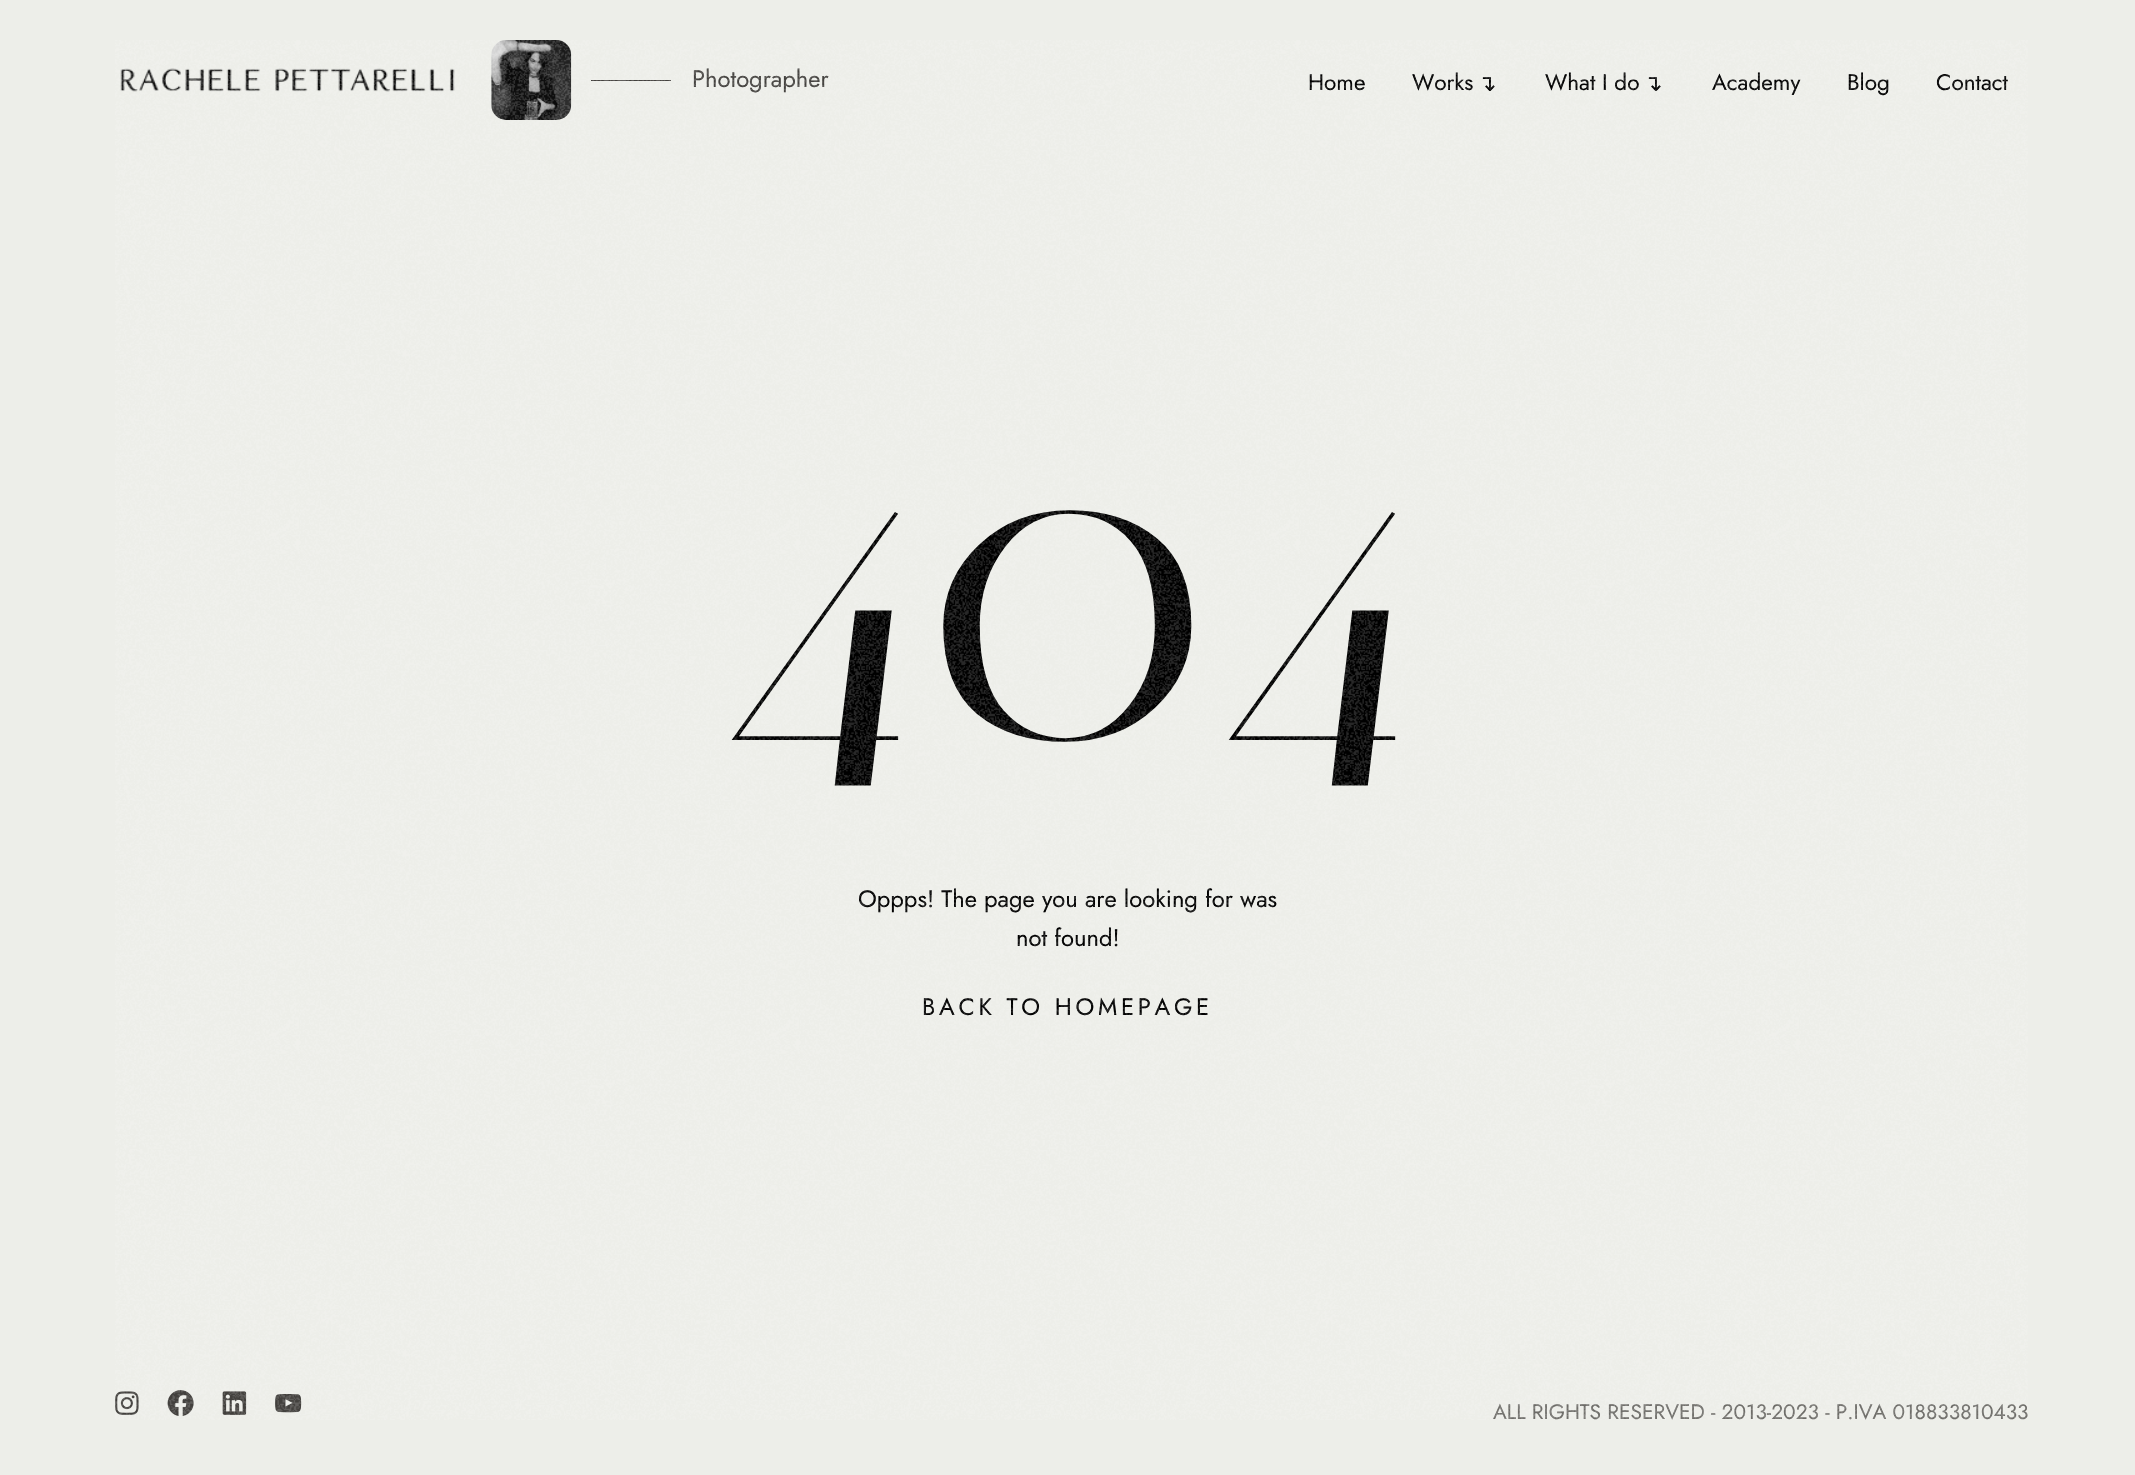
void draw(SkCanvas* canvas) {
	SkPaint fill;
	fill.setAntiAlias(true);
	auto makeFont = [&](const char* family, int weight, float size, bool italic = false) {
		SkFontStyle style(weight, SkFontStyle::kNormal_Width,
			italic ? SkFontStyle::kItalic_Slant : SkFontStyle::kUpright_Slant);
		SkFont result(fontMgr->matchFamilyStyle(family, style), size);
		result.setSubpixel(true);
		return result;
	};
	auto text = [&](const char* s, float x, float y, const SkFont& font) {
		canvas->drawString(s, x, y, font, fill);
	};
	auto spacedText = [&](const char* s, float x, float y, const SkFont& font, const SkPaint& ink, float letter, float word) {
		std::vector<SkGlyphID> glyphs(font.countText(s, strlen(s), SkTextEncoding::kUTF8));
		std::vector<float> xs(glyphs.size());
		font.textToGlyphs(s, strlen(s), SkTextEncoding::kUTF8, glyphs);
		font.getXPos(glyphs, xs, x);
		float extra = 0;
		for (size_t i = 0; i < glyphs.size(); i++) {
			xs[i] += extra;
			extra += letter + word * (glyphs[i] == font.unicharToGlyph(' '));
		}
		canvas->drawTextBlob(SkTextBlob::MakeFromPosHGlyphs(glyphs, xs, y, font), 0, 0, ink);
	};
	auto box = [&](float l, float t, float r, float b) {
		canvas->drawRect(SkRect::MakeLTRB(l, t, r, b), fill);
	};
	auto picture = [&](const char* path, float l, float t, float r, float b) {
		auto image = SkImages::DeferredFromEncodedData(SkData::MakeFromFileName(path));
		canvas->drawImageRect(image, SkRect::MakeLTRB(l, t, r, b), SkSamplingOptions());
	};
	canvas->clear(0xFFEDEEE9);
	picture("image1.png", 120, 68, 455, 92);
	picture("image2.png", 491, 40, 572, 120);
	fill.setColor(0xFF42403D);
	box(591, 80, 671, 81);
	picture("image3.png", 115, 1391, 139, 1415);
	picture("image4.png", 167, 1390, 194, 1416);
	picture("image5.png", 222, 1391, 247, 1415);
	picture("image6.png", 275, 1394, 302, 1413);
	auto font1 = makeFont("Jost", 400, 23.75f);
	text("Photographer", 692, 87, font1);
	auto font2 = makeFont("Jost", 400, 22.5f);
	fill.setColor(0xFF000000);
	text("Home", 1308, 90, font2);
	text("Works", 1412, 90, font2);
	auto font3 = makeFont("DejaVu Sans", 400, 22.5f);
	canvas->save();
	canvas->rotate(-90, 1497, 92);
	text("↵", 1497, 92, font3);
	canvas->restore();
	text("What I do", 1545, 90, font2);
	canvas->save();
	canvas->rotate(-90, 1663, 92);
	text("↵", 1663, 92, font3);
	canvas->restore();
	text("Academy", 1712, 90, font2);
	text("Blog", 1847, 90, font2);
	text("Contact", 1936, 90, font2);
	auto font4 = makeFont("Italiana", 400, 456);
	text("404", 718, 740, font4);
	text("Oppps! The page you are looking for was", 858, 907, font1);
	text("not found!", 1016, 946, font1);
	spacedText("BACK TO HOMEPAGE", 922, 1015, font1, fill, 3.75f, 0);
	auto font5 = makeFont("Jost", 400, 20.9f);
	fill.setColor(0xFF6D6C68);
	text("ALL RIGHTS RESERVED - 2013-2023 - P.IVA 018833810433", 1493, 1419, font5);
	picture("image0.png", 115, 40, 2028, 1420);
}
